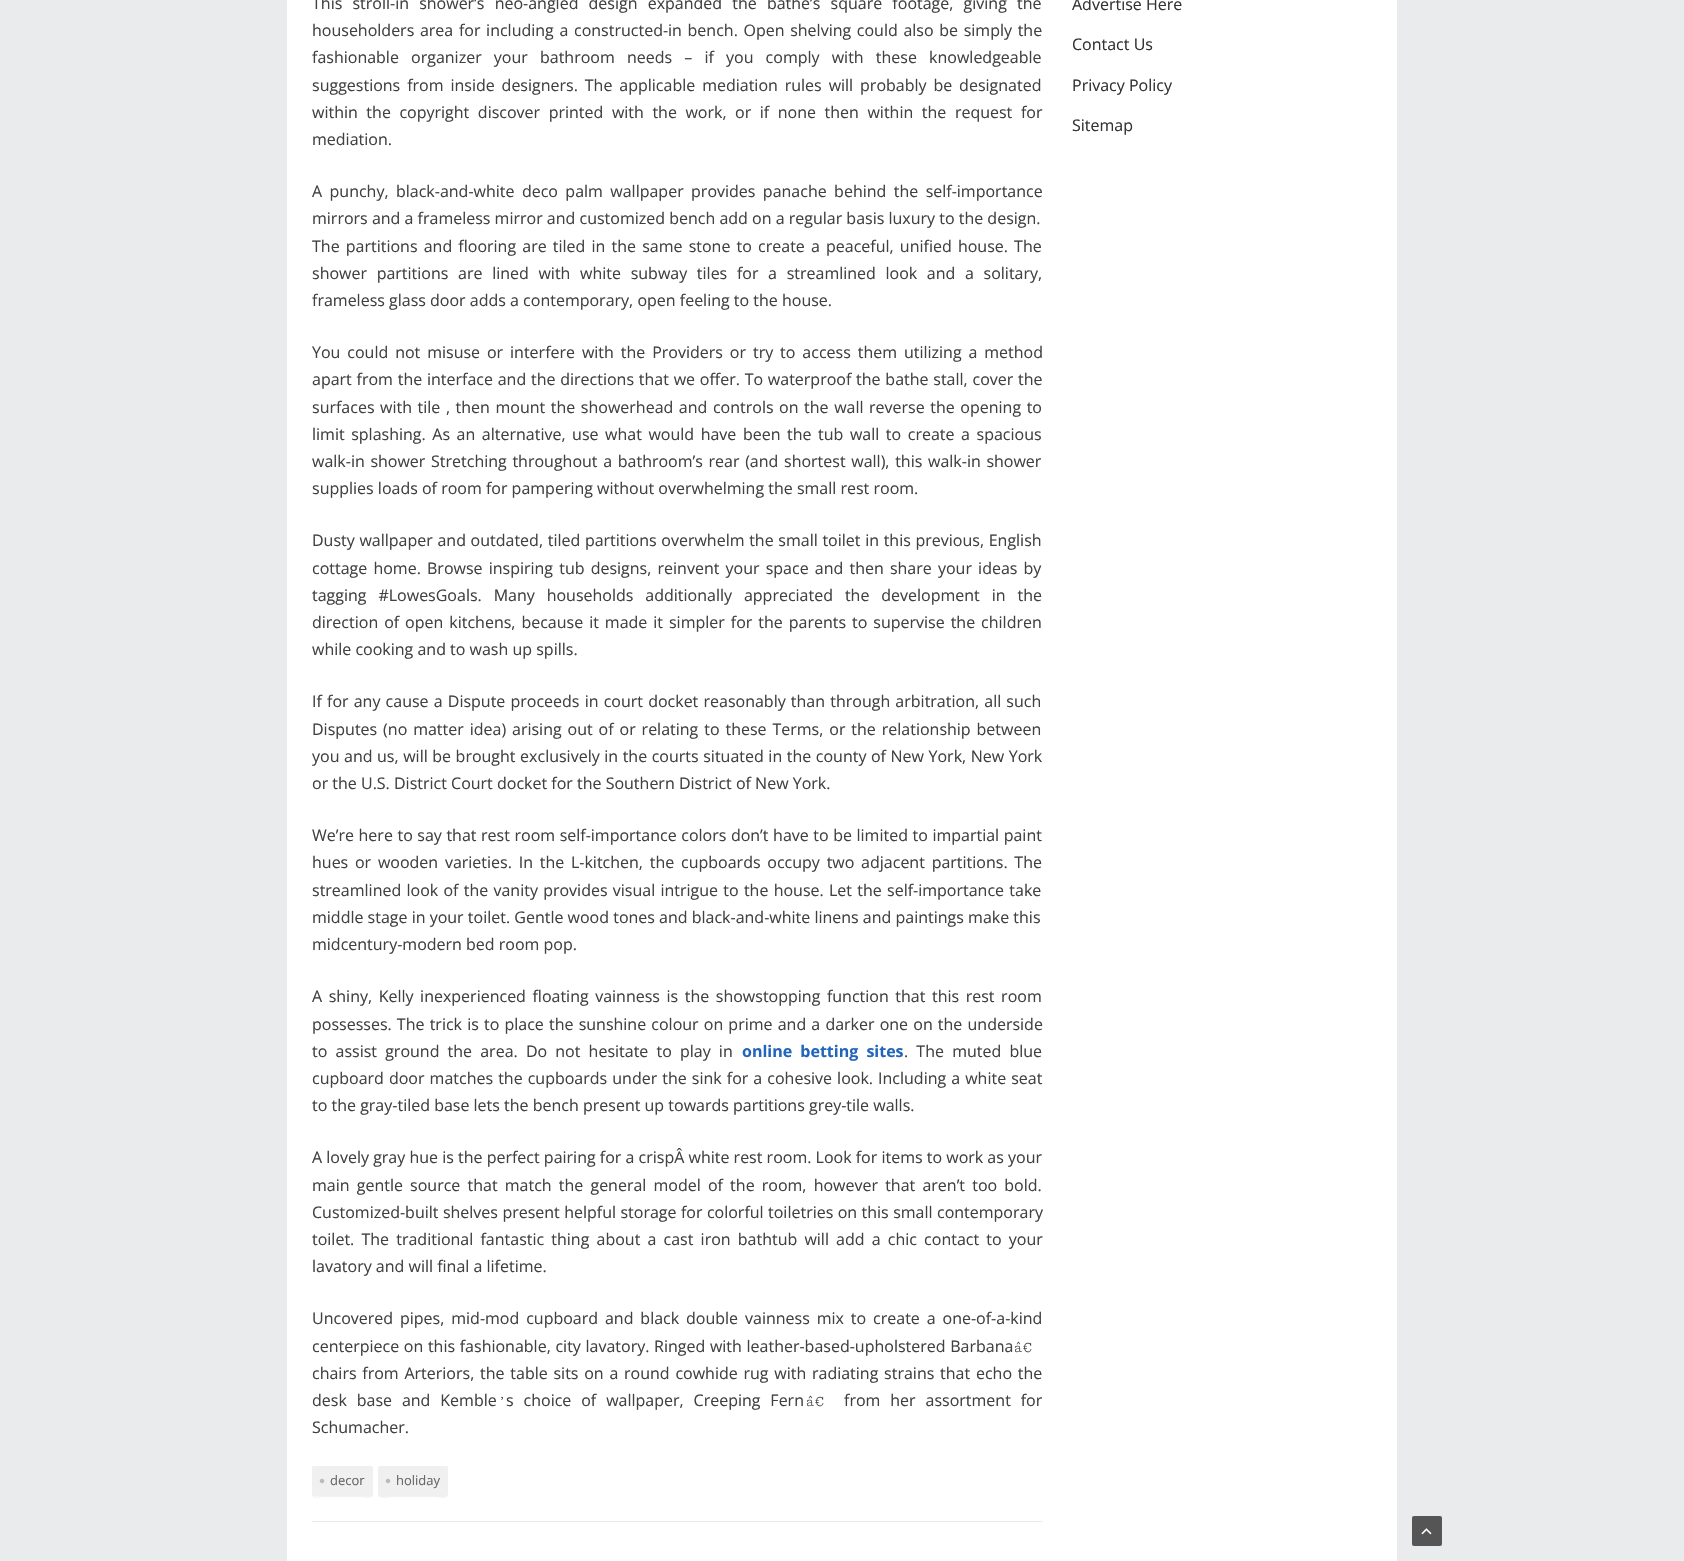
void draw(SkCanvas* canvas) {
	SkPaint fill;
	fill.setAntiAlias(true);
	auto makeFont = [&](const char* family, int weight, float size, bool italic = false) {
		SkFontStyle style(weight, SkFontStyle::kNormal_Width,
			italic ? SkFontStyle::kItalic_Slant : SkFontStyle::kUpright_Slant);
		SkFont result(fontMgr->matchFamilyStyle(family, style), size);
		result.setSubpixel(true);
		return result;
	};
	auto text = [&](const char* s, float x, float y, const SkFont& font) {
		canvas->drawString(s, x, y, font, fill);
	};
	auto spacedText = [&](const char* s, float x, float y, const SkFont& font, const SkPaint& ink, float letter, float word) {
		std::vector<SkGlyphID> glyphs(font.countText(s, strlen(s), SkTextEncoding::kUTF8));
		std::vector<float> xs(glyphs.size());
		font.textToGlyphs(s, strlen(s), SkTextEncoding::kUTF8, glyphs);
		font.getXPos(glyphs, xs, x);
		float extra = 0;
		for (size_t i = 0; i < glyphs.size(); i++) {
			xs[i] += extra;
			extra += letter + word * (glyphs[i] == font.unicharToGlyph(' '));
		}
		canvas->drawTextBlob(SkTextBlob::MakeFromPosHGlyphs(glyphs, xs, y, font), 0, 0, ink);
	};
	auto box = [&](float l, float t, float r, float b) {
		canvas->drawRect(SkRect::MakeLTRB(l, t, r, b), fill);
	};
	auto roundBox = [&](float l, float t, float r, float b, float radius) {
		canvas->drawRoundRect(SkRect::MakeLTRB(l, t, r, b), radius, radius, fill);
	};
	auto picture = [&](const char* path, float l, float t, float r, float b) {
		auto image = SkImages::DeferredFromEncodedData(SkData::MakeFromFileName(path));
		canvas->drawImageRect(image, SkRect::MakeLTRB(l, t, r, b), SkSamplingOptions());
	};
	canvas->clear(0xFFEAEBEC);
	fill.setColor(0xFFFFFFFF);
	box(287, 0, 1397, 1561);
	fill.setColor(0xFFF2F2F2);
	canvas->drawPath(SkPathBuilder().moveTo(312, 1494).cubicTo(312, 1500, 320, 1497, 324, 1497).lineTo(362, 1497).cubicTo(365, 1497, 373, 1500, 373, 1494).lineTo(372, 1496).lineTo(324, 1496).cubicTo(320, 1496, 315, 1498, 313, 1495).close().detach(), fill);
	fill.setColor(0xFFF0F0F0);
	roundBox(312, 1466, 373, 1496, 2);
	picture("image0.png", 319, 1478, 325, 1484);
	fill.setColor(0xFFF2F2F2);
	canvas->drawPath(SkPathBuilder().moveTo(378, 1494).cubicTo(378, 1500, 387, 1497, 391, 1497).lineTo(435, 1497).cubicTo(439, 1497, 448, 1500, 448, 1494).cubicTo(448, 1495, 447, 1496, 446, 1496).lineTo(379, 1496).close().detach(), fill);
	fill.setColor(0xFFF0F0F0);
	roundBox(378, 1466, 448, 1496, 2);
	picture("image0.png", 385, 1478, 391, 1484);
	fill.setColor(0xFFE9E9E9);
	box(312, 1521, 1042, 1522);
	fill.setColor(0xFF555555);
	roundBox(1412, 1516, 1442, 1546, 2);
	picture("image1.png", 1421, 1528, 1432, 1535);
	auto font1 = makeFont("Open Sans", 400, 16);
	fill.setColor(0xFF414141);
	spacedText("This stroll-in shower’s neo-angled design expanded the bathe’s square footage, giving the", 312, 9, font1, fill, 0, 6);
	spacedText("householders area for including a constructed-in bench. Open shelving could also be simply the", 312, 36, font1, fill, 0, 1.5f);
	spacedText("fashionable organizer your bathroom needs – if you comply with these knowledgeable", 312, 63, font1, fill, 0, 8);
	spacedText("suggestions from inside designers. The applicable mediation rules will probably be designated", 312, 91, font1, fill, 0, 2.75f);
	spacedText("within the copyright discover printed with the work, or if none then within the request for", 312, 118, font1, fill, 0, 4.4f);
	text("mediation.", 312, 145, font1);
	spacedText("A punchy, black-and-white deco palm wallpaper provides panache behind the self-importance", 312, 197, font1, fill, 0, 3.25f);
	text("mirrors and a frameless mirror and customized bench add on a regular basis luxury to the design.", 312, 224, font1);
	spacedText("The partitions and flooring are tiled in the same stone to create a peaceful, unified house. The", 312, 252, font1, fill, 0, 2);
	spacedText("shower partitions are lined with white subway tiles for a streamlined look and a solitary,", 312, 279, font1, fill, 0, 5.5f);
	text("frameless glass door adds a contemporary, open feeling to the house.", 312, 306, font1);
	spacedText("You could not misuse or interfere with the Providers or try to access them utilizing a method", 312, 358, font1, fill, 0, 2.75f);
	spacedText("apart from the interface and the directions that we offer. To waterproof the bathe stall, cover the", 312, 385, font1, fill, 0, 0.6f);
	spacedText("surfaces with tile , then mount the showerhead and controls on the wall reverse the opening to", 312, 413, font1, fill, 0, 1.4f);
	spacedText("limit splashing. As an alternative, use what would have been the tub wall to create a spacious", 312, 440, font1, fill, 0, 2.4f);
	spacedText("walk-in shower Stretching throughout a bathroom’s rear (and shortest wall), this walk-in shower", 312, 467, font1, fill, 0, 1.5f);
	text("supplies loads of room for pampering without overwhelming the small rest room.", 312, 494, font1);
	spacedText("Dusty wallpaper and outdated, tiled partitions overwhelm the small toilet in this previous, English", 312, 546, font1, fill, 0, 0.5f);
	spacedText("cottage home. Browse inspiring tub designs, reinvent your space and then share your ideas by", 312, 574, font1, fill, 0, 2);
	spacedText("tagging #LowesGoals. Many households additionally appreciated the development in the", 312, 601, font1, fill, 0, 7.75f);
	spacedText("direction of open kitchens, because it made it simpler for the parents to supervise the children", 312, 628, font1, fill, 0, 1.8f);
	text("while cooking and to wash up spills.", 312, 655, font1);
	spacedText("If for any cause a Dispute proceeds in court docket reasonably than through arbitration, all such", 312, 707, font1, fill, 0, 1);
	spacedText("Disputes (no matter idea) arising out of or relating to these Terms, or the relationship between", 312, 735, font1, fill, 0, 1.75f);
	spacedText("you and us, will be brought exclusively in the courts situated in the county of New York, New York", 312, 762, font1, fill, 0, 0.4f);
	text("or the U.S. District Court docket for the Southern District of New York.", 312, 789, font1);
	spacedText("We’re here to say that rest room self-importance colors don’t have to be limited to impartial paint", 312, 841, font1, fill, 0, 0.4f);
	spacedText("hues or wooden varieties. In the L-kitchen, the cupboards occupy two adjacent partitions. The", 312, 868, font1, fill, 0, 2.6f);
	spacedText("streamlined look of the vanity provides visual intrigue to the house. Let the self-importance take", 312, 896, font1, fill, 0, 1.1f);
	text("middle stage in your toilet. Gentle wood tones and black-and-white linens and paintings make this", 312, 923, font1);
	text("midcentury-modern bed room pop.", 312, 950, font1);
	spacedText("A shiny, Kelly inexperienced floating vainness is the showstopping function that this rest room", 312, 1002, font1, fill, 0, 2.4f);
	spacedText("possesses. The trick is to place the sunshine colour on prime and a darker one on the underside", 312, 1030, font1, fill, 0, 1);
	spacedText("to assist ground the area. Do not hesitate to play in", 312, 1057, font1, fill, 0, 4);
	auto font2 = makeFont("Open Sans", 700, 16);
	fill.setColor(0xFF2266BB);
	spacedText("online betting sites", 742, 1057, font2, fill, 0, 4);
	fill.setColor(0xFF414141);
	spacedText(". The muted blue", 904, 1057, font1, fill, 0, 4);
	spacedText("cupboard door matches the cupboards under the sink for a cohesive look. Including a white seat", 312, 1084, font1, fill, 0, 0.9f);
	text("to the gray-tiled base lets the bench present up towards partitions grey-tile walls.", 312, 1111, font1);
	text("A lovely gray hue is the perfect pairing for a crispÂ white rest room. Look for items to work as your", 312, 1163, font1);
	spacedText("main gentle source that match the general model of the room, however that aren’t too bold.", 312, 1191, font1, fill, 0, 3);
	spacedText("Customized-built shelves present helpful storage for colorful toiletries on this small contemporary", 312, 1218, font1, fill, 0, 0.25f);
	spacedText("toilet. The traditional fantastic thing about a cast iron bathtub will add a chic contact to your", 312, 1245, font1, fill, 0, 3);
	text("lavatory and will final a lifetime.", 312, 1272, font1);
	spacedText("Uncovered pipes, mid-mod cupboard and black double vainness mix to create a one-of-a-kind", 312, 1324, font1, fill, 0, 2.75f);
	spacedText("centerpiece on this fashionable, city lavatory. Ringed with leather-based-upholstered Barbana", 312, 1352, font1, fill, 0, 0.5f);
	auto font3 = makeFont("Cutive Mono", 400, 16);
	text("â€", 1013, 1352, font3);
	spacedText("chairs from Arteriors, the table sits on a round cowhide rug with radiating strains that echo the", 312, 1379, font1, fill, 0, 1.6f);
	spacedText("desk base and Kemble", 312, 1406, font1, fill, 0, 5.75f);
	text("’", 497, 1406, font3);
	spacedText("s choice of wallpaper, Creeping Fern", 506, 1406, font1, fill, 0, 5.75f);
	text("â€", 805, 1406, font3);
	spacedText("from her assortment for", 844, 1406, font1, fill, 0, 5.75f);
	text("Schumacher.", 312, 1433, font1);
	auto font4 = makeFont("Open Sans", 400, 13);
	fill.setColor(0xFF666666);
	text("decor", 330, 1485, font4);
	text("holiday", 396, 1485, font4);
	fill.setColor(0xFF333333);
	text("Advertise Here", 1072, 10, font1);
	text("Contact Us", 1072, 50, font1);
	text("Privacy Policy", 1072, 91, font1);
	text("Sitemap", 1072, 131, font1);
}
